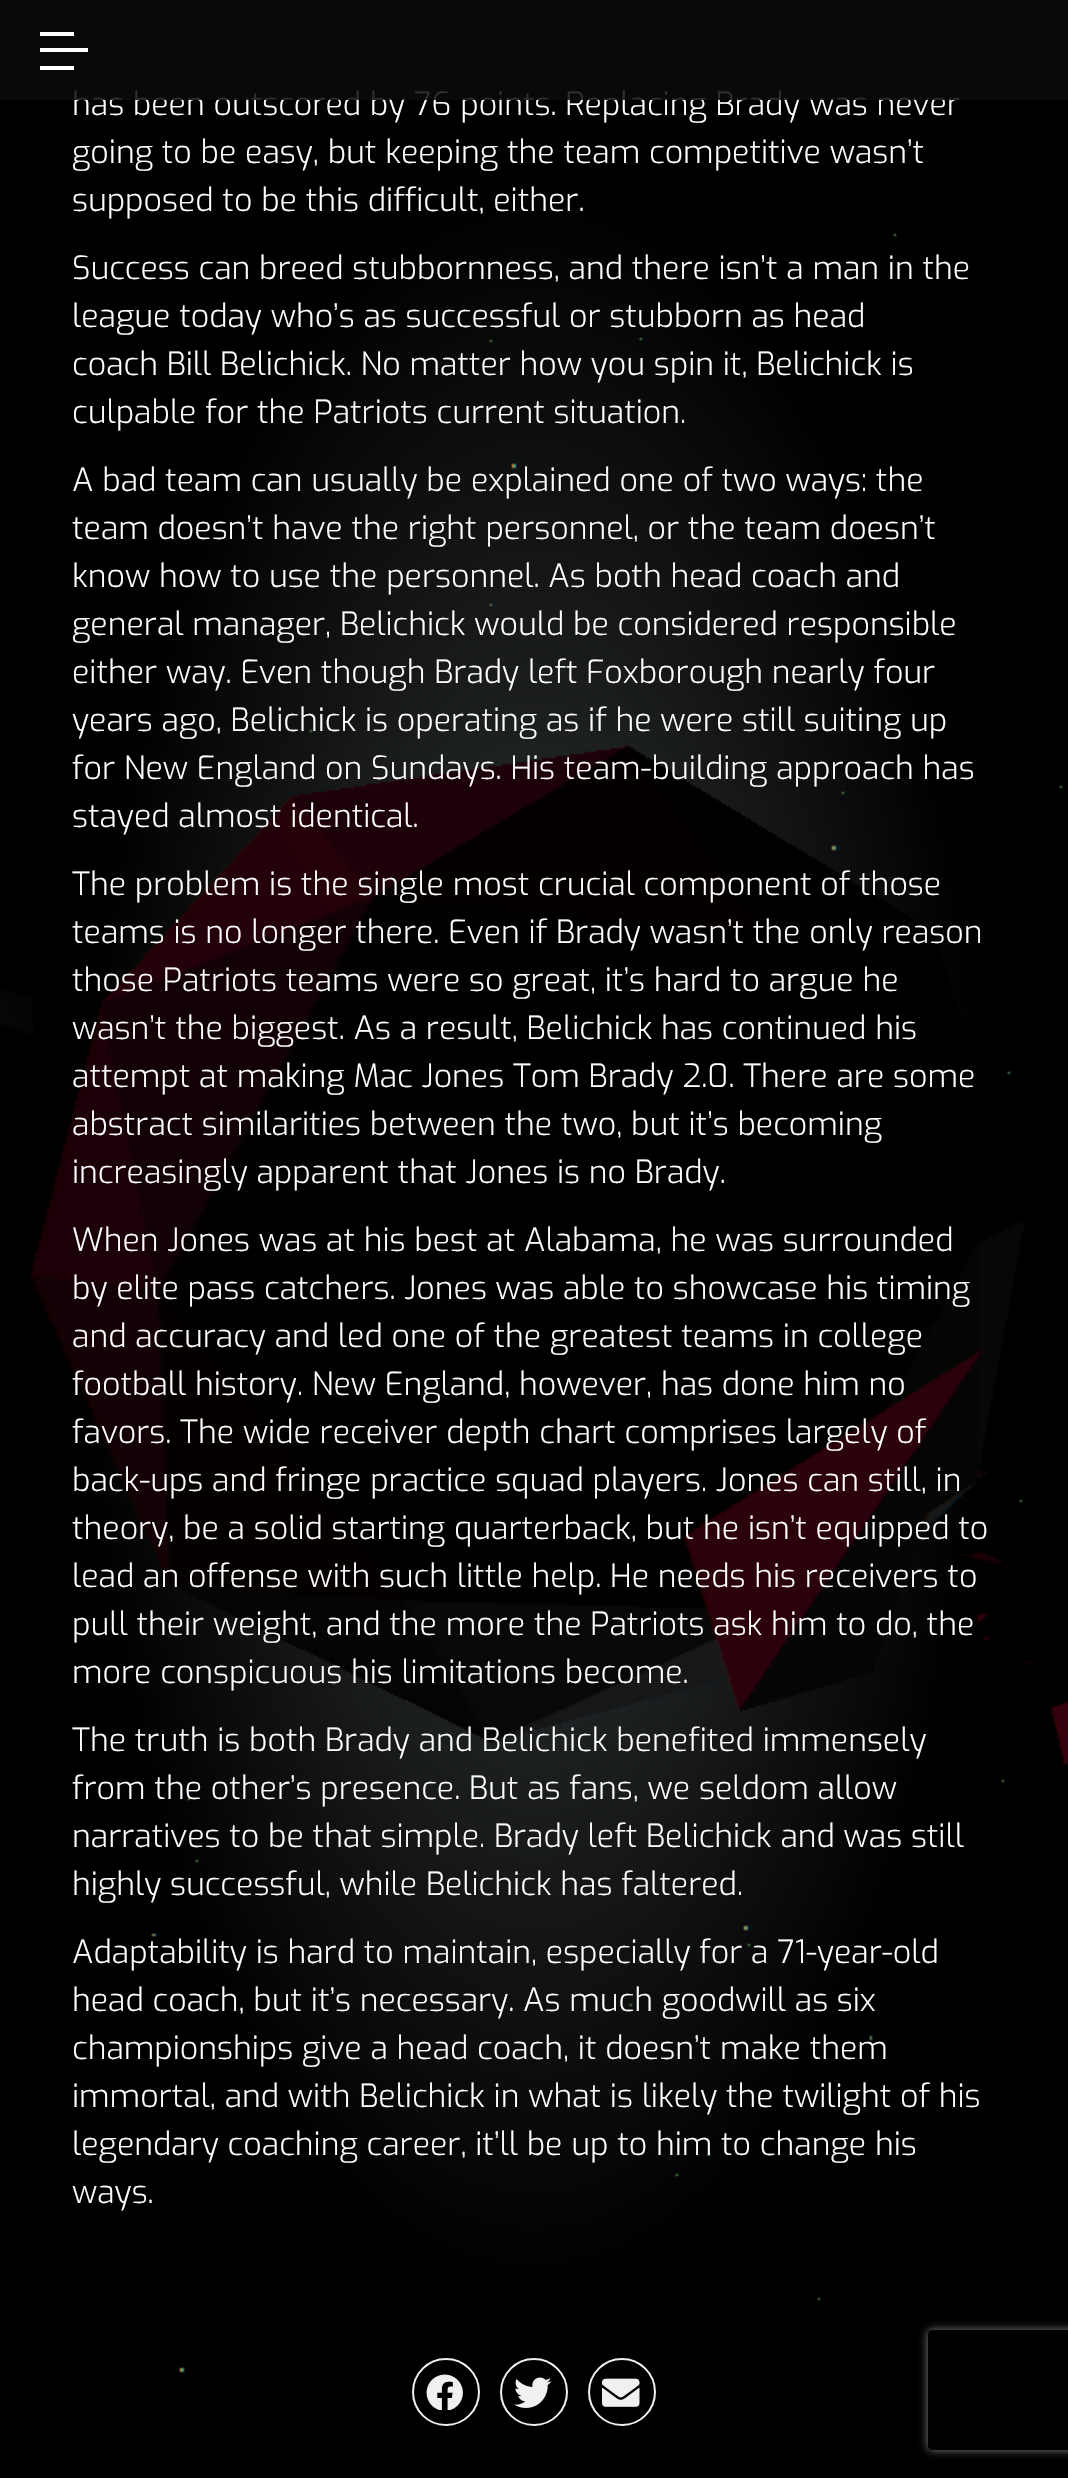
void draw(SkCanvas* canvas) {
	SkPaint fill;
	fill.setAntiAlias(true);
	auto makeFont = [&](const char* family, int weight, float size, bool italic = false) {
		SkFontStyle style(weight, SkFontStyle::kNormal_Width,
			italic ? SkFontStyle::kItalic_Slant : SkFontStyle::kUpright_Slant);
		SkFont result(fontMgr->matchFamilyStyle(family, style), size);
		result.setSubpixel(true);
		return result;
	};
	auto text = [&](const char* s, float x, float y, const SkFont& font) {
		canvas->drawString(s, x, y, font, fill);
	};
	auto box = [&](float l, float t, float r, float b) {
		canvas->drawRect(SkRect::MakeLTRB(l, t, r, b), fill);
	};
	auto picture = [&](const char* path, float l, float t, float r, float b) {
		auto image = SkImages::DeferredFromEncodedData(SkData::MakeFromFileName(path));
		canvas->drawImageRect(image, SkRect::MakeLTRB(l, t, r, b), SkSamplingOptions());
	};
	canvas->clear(0xFFFFFFFF);
	{
		const SkColor colors[] = {0xFF383D3F, 0xFF000000};
		const float stops[] = {0, 0.6f};
		SkMatrix m = SkMatrix::Translate(534, 1239).preScale(755, 1752);
		fill.setShader(SkGradientShader::MakeRadial({0, 0}, 1, colors, stops, 2, SkTileMode::kClamp, 0, &m));
		fill.setAlpha(255);
	}
	box(0, 0, 1068, 2478);
	picture("image0.png", 0, 233, 1068, 2373);
	fill.setStyle(SkPaint::kStroke_Style);
	fill.setStrokeWidth(2);
	fill.setShader(nullptr);
	fill.setColor(0xFFF0F0F0);
	canvas->drawCircle(446, 2392, 33, fill);
	picture("image1.png", 426, 2374, 463, 2410);
	canvas->drawCircle(534, 2392, 33, fill);
	picture("image2.png", 514, 2377, 552, 2408);
	canvas->drawCircle(622, 2392, 33, fill);
	picture("image3.png", 602, 2378, 640, 2407);
	canvas->save();
	canvas->clipPath(SkPathBuilder(SkPathFillType::kEvenOdd).moveTo(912, 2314).lineTo(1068, 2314).lineTo(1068, 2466).lineTo(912, 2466).close().moveTo(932, 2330).lineTo(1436, 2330).cubicTo(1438, 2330, 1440, 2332, 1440, 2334).lineTo(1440, 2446).cubicTo(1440, 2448, 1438, 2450, 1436, 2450).lineTo(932, 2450).cubicTo(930, 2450, 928, 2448, 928, 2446).lineTo(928, 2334).cubicTo(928, 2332, 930, 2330, 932, 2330).close().detach(), true);
	fill.setStyle(SkPaint::kFill_Style);
	fill.setColor(0xFF808080);
	fill.setMaskFilter(SkMaskFilter::MakeBlur(kNormal_SkBlurStyle, 5));
	canvas->drawRoundRect(SkRect::MakeLTRB(928, 2330, 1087, 2450), 4, 4, fill);
	fill.setMaskFilter(nullptr);
	canvas->restore();
	auto font1 = makeFont("Exo", 300, 32);
	fill.setColor(0xFFFFFFFF);
	text("has been outscored by 76 points. Replacing Brady was never", 72, 115, font1);
	fill.setColor(0xD90A0A0A);
	box(0, 0, 1068, 100);
	fill.setColor(0xFFFFFFFF);
	box(40, 66, 74, 70);
	box(40, 48, 88, 52);
	box(40, 32, 74, 36);
	text("going to be easy, but keeping the team competitive wasn’t", 72, 163, font1);
	text("supposed to be this difficult, either.", 72, 211, font1);
	text("Success can breed stubbornness, and there isn’t a man in the", 72, 279, font1);
	text("league today who’s as successful or stubborn as head", 72, 327, font1);
	text("coach Bill Belichick. No matter how you spin it, Belichick is", 72, 375, font1);
	text("culpable for the Patriots current situation.", 72, 423, font1);
	text("A bad team can usually be explained one of two ways: the", 72, 491, font1);
	text("team doesn’t have the right personnel, or the team doesn’t", 72, 539, font1);
	text("know how to use the personnel. As both head coach and", 72, 587, font1);
	text("general manager, Belichick would be considered responsible", 72, 635, font1);
	text("either way. Even though Brady left Foxborough nearly four", 72, 683, font1);
	text("years ago, Belichick is operating as if he were still suiting up", 72, 731, font1);
	text("for New England on Sundays. His team-building approach has", 72, 779, font1);
	text("stayed almost identical.", 72, 827, font1);
	text("The problem is the single most crucial component of those", 72, 895, font1);
	text("teams is no longer there. Even if Brady wasn’t the only reason", 72, 943, font1);
	text("those Patriots teams were so great, it’s hard to argue he", 72, 991, font1);
	text("wasn’t the biggest. As a result, Belichick has continued his", 72, 1039, font1);
	text("attempt at making Mac Jones Tom Brady 2.0. There are some", 72, 1087, font1);
	text("abstract similarities between the two, but it’s becoming", 72, 1135, font1);
	text("increasingly apparent that Jones is no Brady.", 72, 1183, font1);
	text("When Jones was at his best at Alabama, he was surrounded", 72, 1251, font1);
	text("by elite pass catchers. Jones was able to showcase his timing", 72, 1299, font1);
	text("and accuracy and led one of the greatest teams in college", 72, 1347, font1);
	text("football history. New England, however, has done him no", 72, 1395, font1);
	text("favors. The wide receiver depth chart comprises largely of", 72, 1443, font1);
	text("back-ups and fringe practice squad players. Jones can still, in", 72, 1491, font1);
	text("theory, be a solid starting quarterback, but he isn’t equipped to", 72, 1539, font1);
	text("lead an offense with such little help. He needs his receivers to", 72, 1587, font1);
	text("pull their weight, and the more the Patriots ask him to do, the", 72, 1635, font1);
	text("more conspicuous his limitations become.", 72, 1683, font1);
	text("The truth is both Brady and Belichick benefited immensely", 72, 1751, font1);
	text("from the other’s presence. But as fans, we seldom allow", 72, 1799, font1);
	text("narratives to be that simple. Brady left Belichick and was still", 72, 1847, font1);
	text("highly successful, while Belichick has faltered.", 72, 1895, font1);
	text("Adaptability is hard to maintain, especially for a 71-year-old", 72, 1963, font1);
	text("head coach, but it’s necessary. As much goodwill as six", 72, 2011, font1);
	text("championships give a head coach, it doesn’t make them", 72, 2059, font1);
	text("immortal, and with Belichick in what is likely the twilight of his", 72, 2107, font1);
	text("legendary coaching career, it’ll be up to him to change his", 72, 2155, font1);
	text("ways.", 72, 2203, font1);
}
